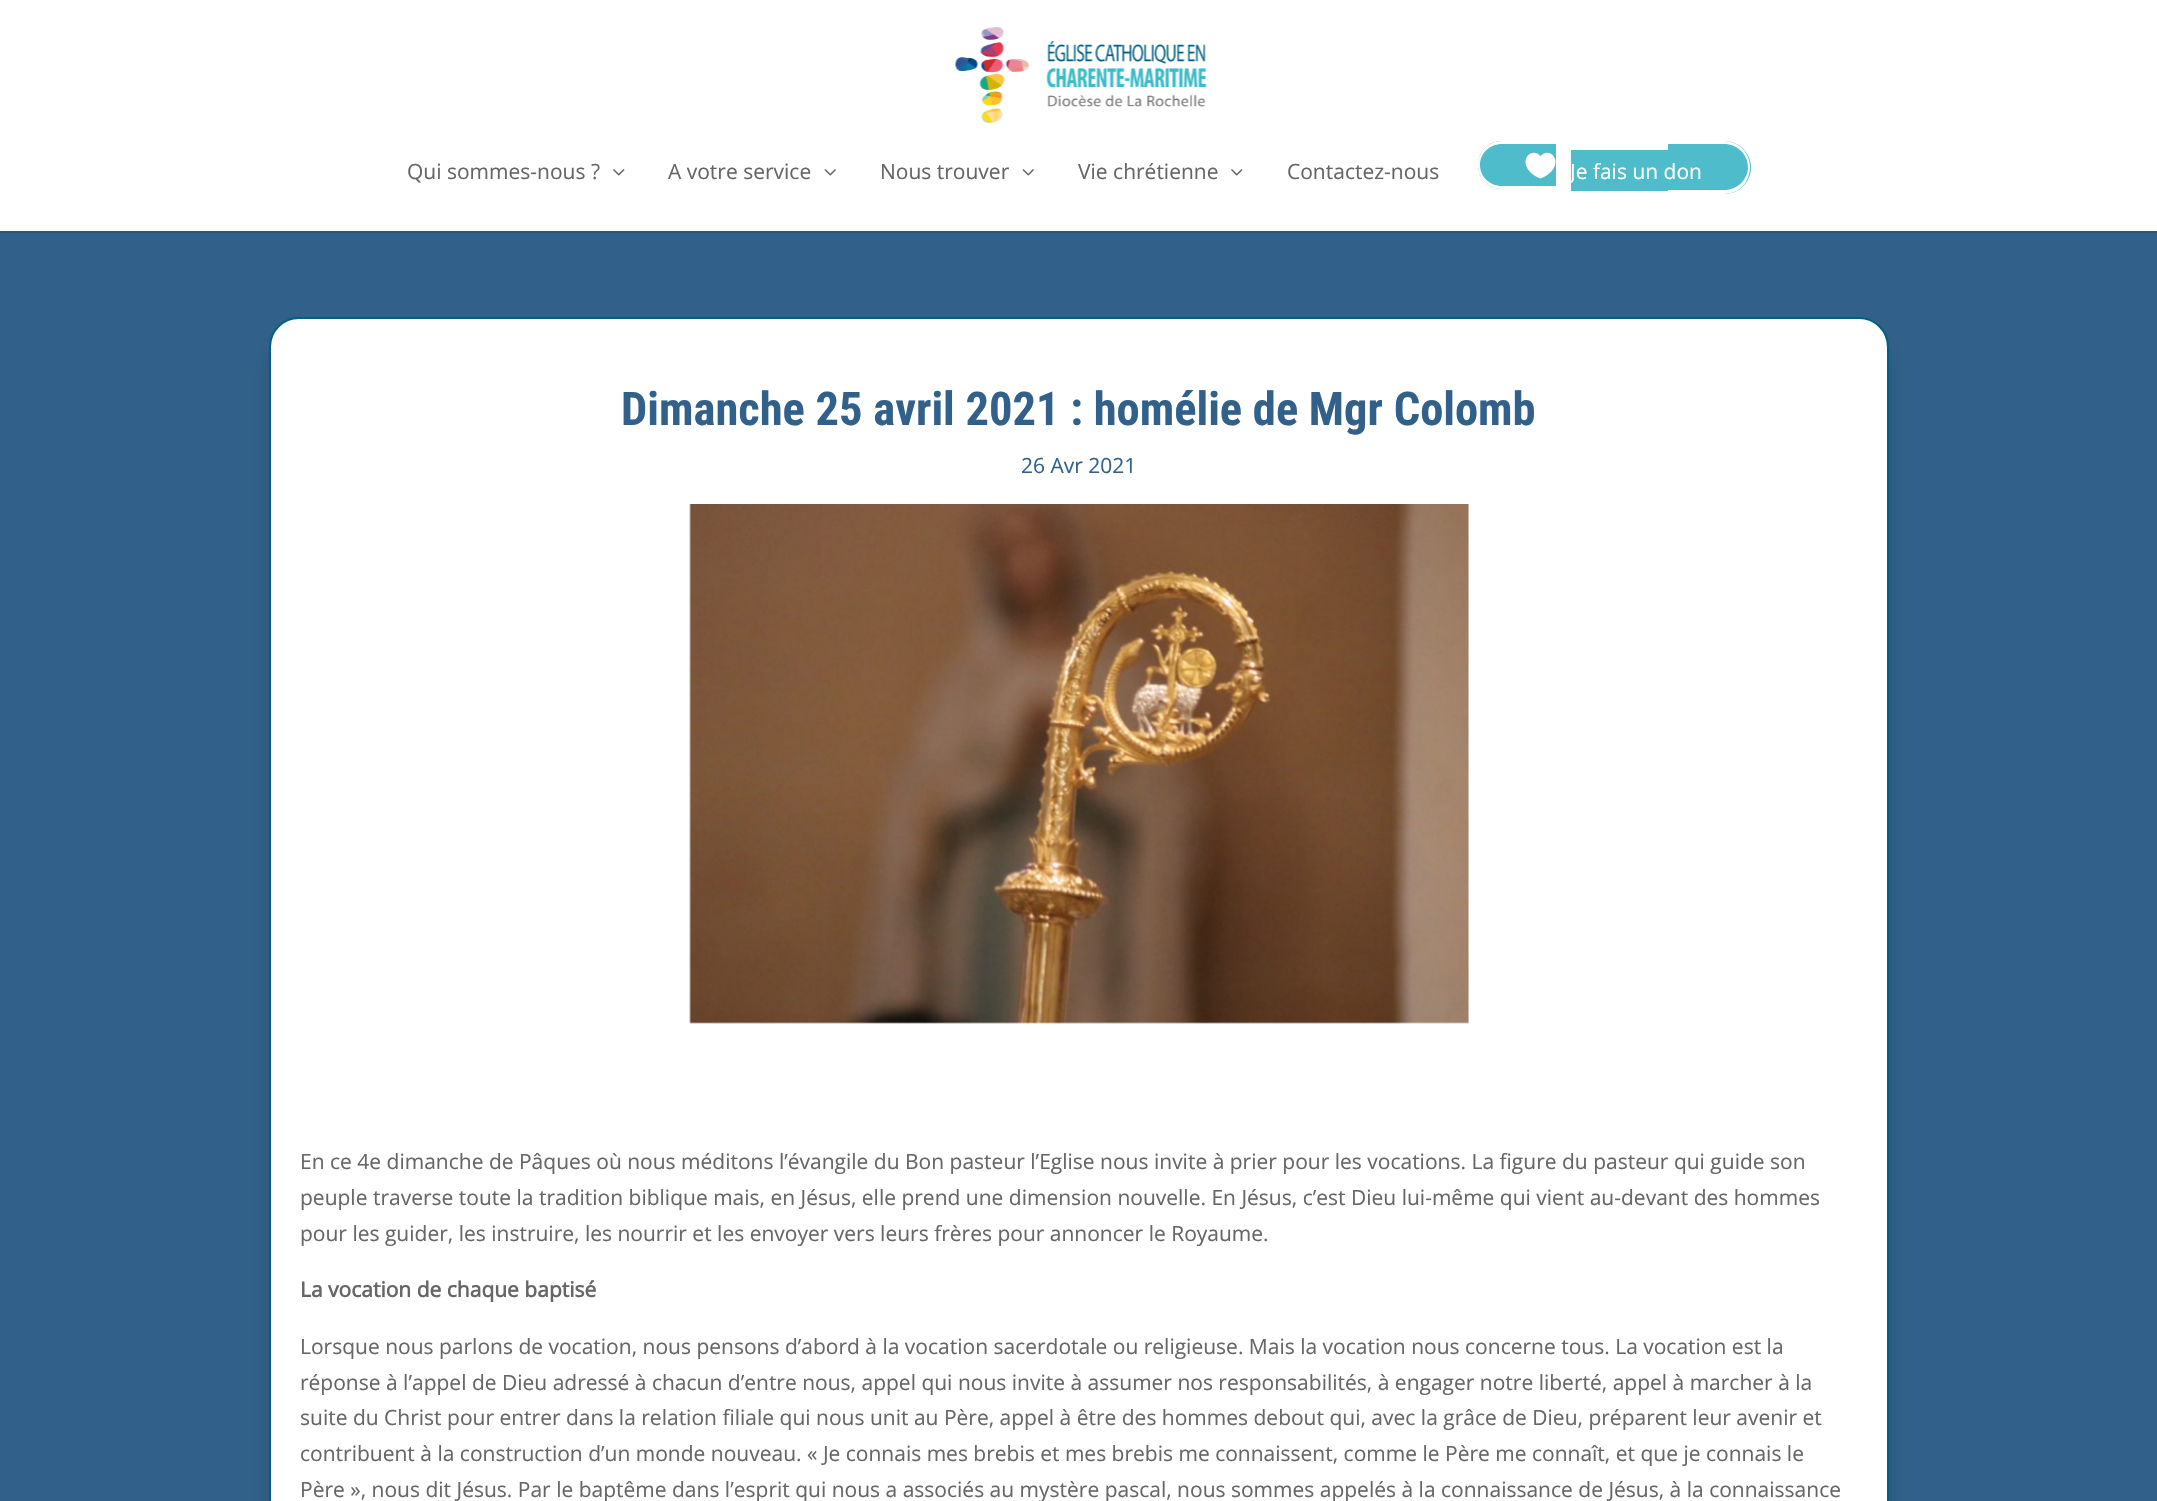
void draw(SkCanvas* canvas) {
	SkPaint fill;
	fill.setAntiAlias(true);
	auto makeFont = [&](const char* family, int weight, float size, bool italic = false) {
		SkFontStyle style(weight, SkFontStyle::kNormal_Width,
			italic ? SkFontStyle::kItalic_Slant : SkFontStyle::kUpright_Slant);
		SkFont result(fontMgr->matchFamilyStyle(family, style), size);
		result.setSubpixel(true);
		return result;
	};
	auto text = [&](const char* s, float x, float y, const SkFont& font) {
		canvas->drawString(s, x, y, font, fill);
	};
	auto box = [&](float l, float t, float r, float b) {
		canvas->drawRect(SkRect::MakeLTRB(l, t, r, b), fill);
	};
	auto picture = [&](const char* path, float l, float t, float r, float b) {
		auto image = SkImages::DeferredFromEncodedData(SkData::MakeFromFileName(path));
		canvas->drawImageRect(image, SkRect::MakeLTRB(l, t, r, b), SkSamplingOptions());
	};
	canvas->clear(0xFF31618A);
	fill.setColor(0xFF2C577C);
	box(0, 231, 2157, 233);
	fill.setColor(0xFFFFFFFF);
	box(0, 0, 2157, 231);
	picture("image0.png", 955, 27, 1207, 123);
	picture("image1.png", 613, 169, 625, 176);
	picture("image2.png", 824, 169, 836, 176);
	picture("image2.png", 1022, 169, 1034, 176);
	picture("image1.png", 1231, 169, 1243, 176);
	fill.setColor(0xFF4FBCCB);
	canvas->drawPath(SkPathBuilder().moveTo(1502, 141).lineTo(1556, 141).lineTo(1556, 189).lineTo(1502, 189).cubicTo(1488.5f, 189, 1478, 178.5f, 1478, 165).cubicTo(1478, 151.5f, 1488.5f, 141, 1502, 141).close().detach(), fill);
	fill.setColor(0xFFFFFFFF);
	canvas->drawPath(SkPathBuilder(SkPathFillType::kEvenOdd).moveTo(1502, 141).lineTo(1556, 141).lineTo(1556, 189).lineTo(1502, 189).cubicTo(1488, 189, 1478, 178, 1478, 165).cubicTo(1478, 152, 1488, 141, 1502, 141).close().moveTo(1502, 144).lineTo(1556, 144).lineTo(1556, 186).lineTo(1502, 186).cubicTo(1490, 186, 1480, 177, 1480, 165).cubicTo(1480, 153, 1490, 144, 1502, 144).close().detach(), fill);
	fill.setColor(0xFF4FBCCB);
	box(1571, 150, 1668, 191);
	canvas->drawPath(SkPathBuilder().moveTo(1668, 141).lineTo(1724.5f, 141).cubicTo(1739, 141, 1751, 153, 1751, 167.5f).cubicTo(1751, 182, 1739, 194, 1724.5f, 194).lineTo(1668, 194).close().detach(), fill);
	fill.setColor(0xFFFFFFFF);
	canvas->drawPath(SkPathBuilder(SkPathFillType::kEvenOdd).moveTo(1668, 141).lineTo(1724, 141).cubicTo(1739, 141, 1750, 153, 1750, 167).cubicTo(1750, 182, 1739, 194, 1724, 194).lineTo(1668, 194).close().moveTo(1668, 144).lineTo(1724, 144).cubicTo(1737, 144, 1748, 154, 1748, 167).cubicTo(1748, 180, 1737, 190, 1724, 190).lineTo(1668, 190).close().detach(), fill);
	picture("image3.png", 1525, 152, 1556, 179);
	fill.setColor(0x4D000000);
	fill.setMaskFilter(SkMaskFilter::MakeBlur(kNormal_SkBlurStyle, 13.5f));
	canvas->drawRoundRect(SkRect::MakeLTRB(278, 344, 1880, 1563), 21, 21, fill);
	fill.setMaskFilter(nullptr);
	fill.setColor(0xFFFFFFFF);
	canvas->drawRoundRect(SkRect::MakeLTRB(270, 318, 1888, 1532), 29, 29, fill);
	fill.setStyle(SkPaint::kStroke_Style);
	fill.setStrokeWidth(2);
	fill.setColor(0xFF005E85);
	canvas->drawRoundRect(SkRect::MakeLTRB(270, 318, 1888, 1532), 29, 29, fill);
	picture("image4.png", 689, 504, 1469, 1024);
	auto font1 = makeFont("Open Sans", 400, 21);
	fill.setStyle(SkPaint::kFill_Style);
	fill.setColor(0xFF666666);
	text("Qui sommes-nous ?", 407, 179, font1);
	text("A votre service", 668, 179, font1);
	text("Nous trouver", 880, 179, font1);
	text("Vie chrétienne", 1078, 179, font1);
	text("Contactez-nous", 1287, 179, font1);
	fill.setColor(0xFFFFFFFF);
	text("Je fais un don", 1570, 179, font1);
	auto font2 = makeFont("Roboto Condensed", 700, 46.5f);
	fill.setColor(0xFF31618A);
	text("Dimanche 25 avril 2021 : homélie de Mgr Colomb", 621, 425, font2);
	text("26 Avr 2021", 1021, 473, font1);
	fill.setColor(0xFF666666);
	text("En ce 4e dimanche de Pâques où nous méditons l’évangile du Bon pasteur l’Eglise nous invite à prier pour les vocations. La figure du pasteur qui guide son", 300, 1169, font1);
	text("peuple traverse toute la tradition biblique mais, en Jésus, elle prend une dimension nouvelle. En Jésus, c’est Dieu lui-même qui vient au-devant des hommes", 300, 1205, font1);
	text("pour les guider, les instruire, les nourrir et les envoyer vers leurs frères pour annoncer le Royaume.", 300, 1241, font1);
	auto font3 = makeFont("Open Sans", 700, 21);
	text("La vocation de chaque baptisé", 300, 1297, font3);
	text("Lorsque nous parlons de vocation, nous pensons d’abord à la vocation sacerdotale ou religieuse. Mais la vocation nous concerne tous. La vocation est la", 300, 1354, font1);
	text("réponse à l’appel de Dieu adressé à chacun d’entre nous, appel qui nous invite à assumer nos responsabilités, à engager notre liberté, appel à marcher à la", 300, 1390, font1);
	text("suite du Christ pour entrer dans la relation filiale qui nous unit au Père, appel à être des hommes debout qui, avec la grâce de Dieu, préparent leur avenir et", 300, 1425, font1);
	text("contribuent à la construction d’un monde nouveau. « Je connais mes brebis et mes brebis me connaissent, comme le Père me connaît, et que je connais le", 300, 1461, font1);
	text("Père », nous dit Jésus. Par le baptême dans l’esprit qui nous a associés au mystère pascal, nous sommes appelés à la connaissance de Jésus, à la connaissance", 300, 1497, font1);
}
